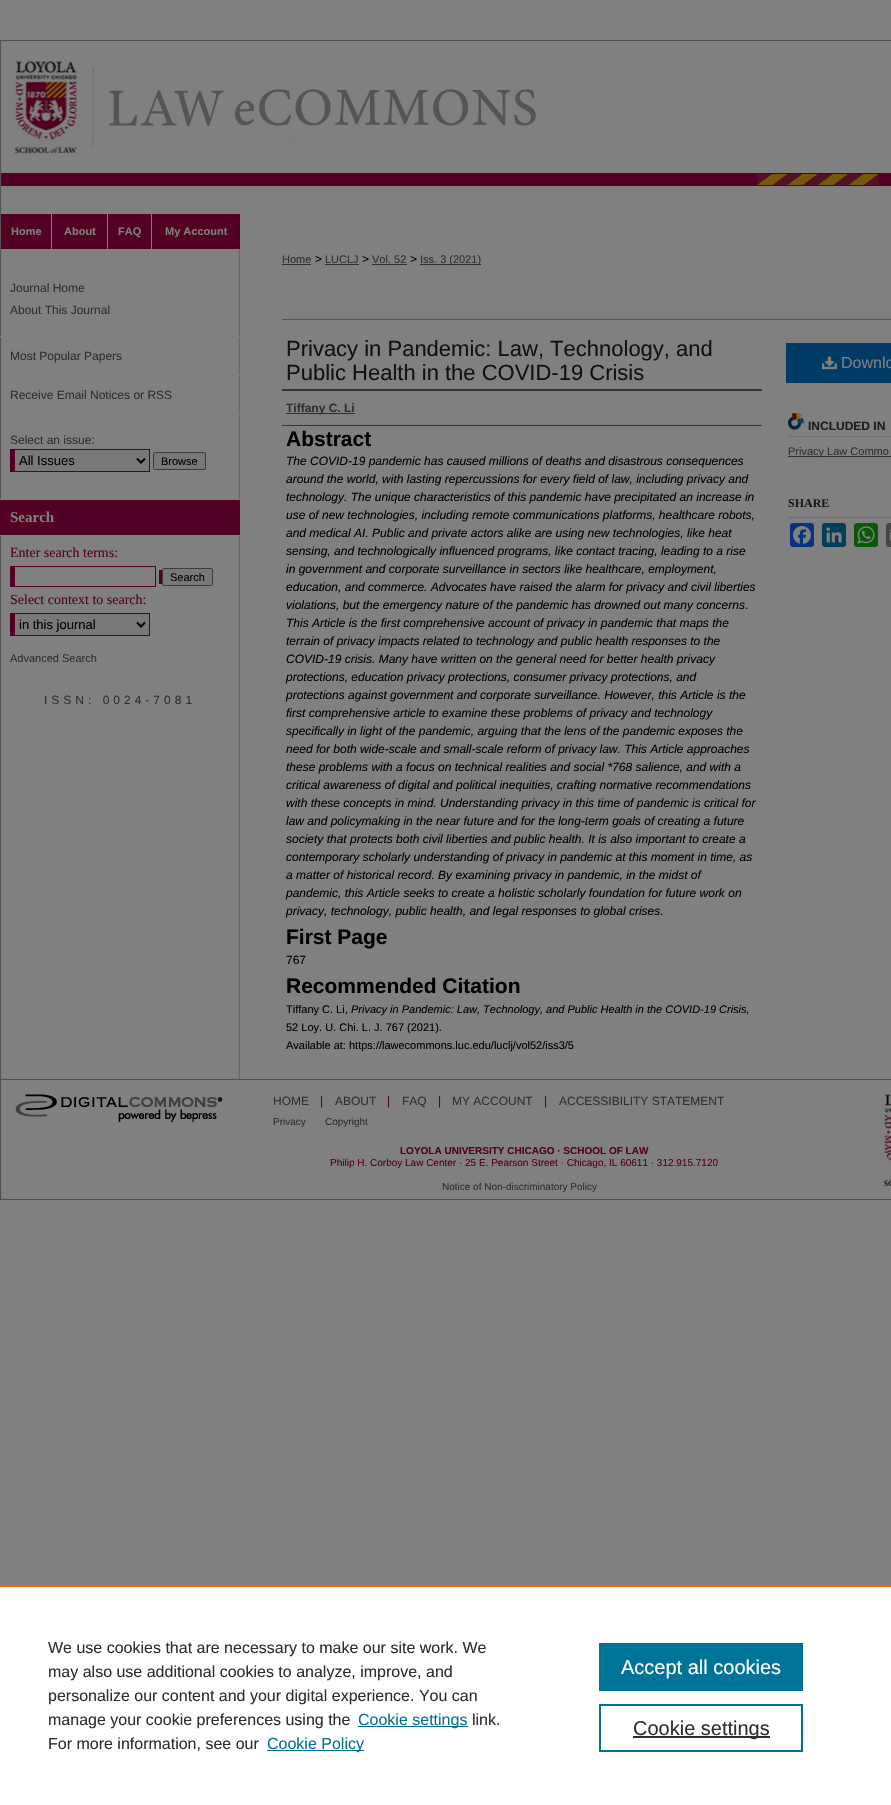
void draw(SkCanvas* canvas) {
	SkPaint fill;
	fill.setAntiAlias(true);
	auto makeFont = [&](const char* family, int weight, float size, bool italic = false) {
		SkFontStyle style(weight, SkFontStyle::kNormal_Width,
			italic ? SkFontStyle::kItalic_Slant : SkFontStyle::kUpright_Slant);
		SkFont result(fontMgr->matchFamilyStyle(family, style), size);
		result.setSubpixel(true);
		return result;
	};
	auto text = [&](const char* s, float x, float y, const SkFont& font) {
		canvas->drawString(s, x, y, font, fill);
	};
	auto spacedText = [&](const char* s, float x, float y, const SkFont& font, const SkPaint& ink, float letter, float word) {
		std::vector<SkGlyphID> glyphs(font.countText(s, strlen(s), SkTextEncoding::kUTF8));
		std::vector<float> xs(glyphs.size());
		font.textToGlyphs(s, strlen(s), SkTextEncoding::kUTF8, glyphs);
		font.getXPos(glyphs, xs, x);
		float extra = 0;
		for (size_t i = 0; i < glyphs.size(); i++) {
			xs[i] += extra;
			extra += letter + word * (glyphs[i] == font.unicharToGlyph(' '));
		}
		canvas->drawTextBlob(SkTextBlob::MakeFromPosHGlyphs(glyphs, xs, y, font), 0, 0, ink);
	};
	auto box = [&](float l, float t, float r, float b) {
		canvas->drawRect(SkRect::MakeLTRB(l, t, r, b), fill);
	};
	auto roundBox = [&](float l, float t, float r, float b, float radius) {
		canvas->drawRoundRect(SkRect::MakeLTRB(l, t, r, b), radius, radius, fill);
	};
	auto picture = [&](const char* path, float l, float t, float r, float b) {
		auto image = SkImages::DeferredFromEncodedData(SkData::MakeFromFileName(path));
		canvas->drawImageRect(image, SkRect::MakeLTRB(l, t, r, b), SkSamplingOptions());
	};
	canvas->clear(0xFF808080);
	picture("image0.png", 0, 40, 891, 186);
	picture("image1.png", 1, 53, 81, 173);
	picture("image2.png", 91, 66, 536, 150);
	fill.setColor(0xFF545252);
	box(0, 186, 1, 249);
	fill.setColor(0xFF520023);
	box(1, 214, 51, 249);
	box(52, 214, 107, 249);
	box(108, 214, 151, 249);
	box(152, 214, 240, 249);
	picture("image3.png", 0, 249, 240, 1079);
	fill.setColor(0xFF808080);
	box(0, 336, 240, 337);
	box(238, 375, 240, 376);
	box(238, 414, 240, 415);
	fill.setColor(0xFF787878);
	box(15, 450, 149, 471);
	fill.setColor(0xFF520023);
	box(10, 449, 150, 450);
	box(149, 449, 150, 472);
	box(10, 471, 150, 472);
	box(10, 449, 15, 472);
	fill.setStyle(SkPaint::kStroke_Style);
	fill.setStrokeWidth(2);
	fill.setColor(0xFF000000);
	canvas->drawPath(SkPathBuilder().moveTo(137, 458.5f).lineTo(141, 462.5f).lineTo(145, 458.5f).detach(), fill);
	fill.setStyle(SkPaint::kFill_Style);
	fill.setColor(0xFF787878);
	canvas->drawRoundRect(SkRect::MakeLTRB(153.5f, 452.5f, 205.5f, 469.5f), 1.5f, 1.5f, fill);
	fill.setStyle(SkPaint::kStroke_Style);
	fill.setStrokeWidth(1);
	fill.setColor(0xFF3B3B3B);
	canvas->drawRoundRect(SkRect::MakeLTRB(153.5f, 452.5f, 205.5f, 469.5f), 1.5f, 1.5f, fill);
	fill.setStyle(SkPaint::kFill_Style);
	fill.setColor(0xFF520023);
	box(0, 500, 240, 535);
	fill.setColor(0xFF808080);
	box(0, 499, 240, 500);
	box(0, 535, 240, 536);
	fill.setColor(0xFF520023);
	box(10, 566, 156, 587);
	box(159, 570, 162, 584);
	fill.setColor(0xFF808080);
	box(15, 567, 155, 586);
	fill.setColor(0xFF787878);
	canvas->drawRoundRect(SkRect::MakeLTRB(162.5f, 568.5f, 212.5f, 585.5f), 1.5f, 1.5f, fill);
	fill.setStyle(SkPaint::kStroke_Style);
	fill.setColor(0xFF3B3B3B);
	canvas->drawRoundRect(SkRect::MakeLTRB(162.5f, 568.5f, 212.5f, 585.5f), 1.5f, 1.5f, fill);
	fill.setStyle(SkPaint::kFill_Style);
	fill.setColor(0xFF787878);
	box(15, 614, 149, 635);
	fill.setColor(0xFF520023);
	box(10, 613, 150, 614);
	box(149, 613, 150, 636);
	box(10, 635, 150, 636);
	box(10, 613, 15, 636);
	fill.setStyle(SkPaint::kStroke_Style);
	fill.setStrokeWidth(2);
	fill.setColor(0xFF000000);
	canvas->drawPath(SkPathBuilder().moveTo(137, 622.5f).lineTo(141, 626.5f).lineTo(145, 622.5f).detach(), fill);
	fill.setStyle(SkPaint::kFill_Style);
	fill.setColor(0xFF2B3035);
	box(282, 264, 311, 265);
	box(325, 264, 359, 265);
	box(372, 264, 407, 265);
	box(420, 264, 481, 265);
	fill.setColor(0xFF555555);
	box(282, 319, 891, 320);
	fill.setColor(0xFF333333);
	box(282, 389, 762, 391);
	box(282, 425, 762, 426);
	fill.setColor(0xFF2B3035);
	box(286, 413, 355, 414);
	fill.setColor(0xFF003A66);
	box(786, 343, 891, 383);
	picture("image4.png", 822, 356, 837, 370);
	picture("image5.png", 788, 413, 804, 430);
	fill.setColor(0xFF6F6F6F);
	box(788, 436, 891, 437);
	fill.setColor(0xFF2B3035);
	box(788, 456, 891, 457);
	fill.setColor(0xFF6F6F6F);
	box(788, 517, 891, 518);
	fill.setColor(0xFF043380);
	roundBox(790, 523, 814, 547, 3);
	picture("image6.png", 793, 526, 811, 544);
	fill.setColor(0xFF003E5B);
	roundBox(822, 523, 846, 547, 3);
	picture("image7.png", 826, 527, 842, 543);
	fill.setColor(0xFF095805);
	roundBox(854, 523, 878, 547, 3);
	picture("image8.png", 857, 526, 875, 544);
	fill.setColor(0xFF444548);
	roundBox(886, 523, 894, 547, 3);
	picture("image9.png", 889, 529, 891, 541);
	fill.setStyle(SkPaint::kStroke_Style);
	fill.setStrokeWidth(1);
	fill.setColor(0xFF514F4F);
	canvas->drawRect(SkRect::MakeLTRB(0.5f, 1079.5f, 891.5f, 1199.5f), fill);
	picture("image10.png", 1, 1080, 241, 1199);
	picture("image11.png", 870, 1085, 891, 1186);
	fill.setStyle(SkPaint::kFill_Style);
	fill.setColor(0xFFFFFFFF);
	box(0, 1587, 891, 1805);
	fill.setColor(0xFFEB6500);
	box(0, 1585, 891, 1587);
	fill.setColor(0xFF007398);
	box(358, 1726, 468, 1727);
	box(267, 1750, 364, 1751);
	box(599, 1643, 803, 1691);
	fill.setStyle(SkPaint::kStroke_Style);
	fill.setStrokeWidth(2);
	canvas->drawRect(SkRect::MakeLTRB(600, 1705, 802, 1751), fill);
	fill.setStyle(SkPaint::kFill_Style);
	fill.setColor(0xFF2E2E2E);
	box(633, 1736, 770, 1738);
	auto font1 = makeFont("Liberation Sans", 700, 11);
	fill.setColor(0xFF808080);
	text("Home", 11, 235, font1);
	text("About", 64, 235, font1);
	text("FAQ", 118, 235, font1);
	text("My Account", 165, 235, font1);
	auto font2 = makeFont("Liberation Sans", 400, 12);
	fill.setColor(0xFF2B3035);
	text("Journal Home", 10, 292, font2);
	text("About This Journal", 10, 314, font2);
	text("Most Popular Papers", 10, 360, font2);
	text("Receive Email Notices or RSS", 10, 399, font2);
	text("Select an issue:", 10, 444, font2);
	auto font3 = makeFont("Liberation Sans", 400, 13);
	fill.setColor(0xFF000000);
	text("All Issues", 19, 465, font3);
	auto font4 = makeFont("Liberation Sans", 400, 11);
	text("Browse", 161, 465, font4);
	auto font5 = makeFont("Liberation Serif", 700, 15);
	fill.setColor(0xFF808080);
	text("Search", 10, 522, font5);
	auto font6 = makeFont("Liberation Serif", 400, 14);
	fill.setColor(0xFF520023);
	text("Enter search terms:", 10, 557, font6);
	fill.setColor(0xFF000000);
	text("Search", 170, 581, font4);
	fill.setColor(0xFF520023);
	text("Select context to search:", 10, 604, font6);
	fill.setColor(0xFF000000);
	text("in this journal", 19, 629, font3);
	fill.setColor(0xFF2B3035);
	text("Advanced Search", 10, 662, font4);
	spacedText("ISSN: 0024-7081", 44, 704, font2, fill, 4, 0);
	text("Home", 282, 263, font4);
	fill.setColor(0xFF000000);
	text(">", 315, 263, font2);
	fill.setColor(0xFF2B3035);
	text("LUCLJ", 325, 263, font4);
	fill.setColor(0xFF000000);
	text(">", 362, 263, font2);
	fill.setColor(0xFF2B3035);
	text("Vol. 52", 372, 263, font4);
	fill.setColor(0xFF000000);
	text(">", 410, 263, font2);
	fill.setColor(0xFF2B3035);
	text("Iss. 3 (2021)", 420, 263, font4);
	auto font7 = makeFont("Liberation Sans", 400, 22);
	fill.setColor(0xFF111111);
	text("Privacy in Pandemic: Law, Technology, and", 286, 356, font7);
	text("Public Health in the COVID-19 Crisis", 286, 380, font7);
	auto font8 = makeFont("Liberation Sans", 700, 12);
	fill.setColor(0xFF2B3035);
	text("Tiffany C. Li", 286, 412, font8);
	auto font9 = makeFont("Liberation Sans", 700, 21);
	fill.setColor(0xFF000000);
	text("Abstract", 286, 446, font9);
	auto font10 = makeFont("Liberation Sans", 400, 12, true);
	text("The COVID-19 pandemic has caused millions of deaths and disastrous consequences", 286, 465, font10);
	text("around the world, with lasting repercussions for every field of law, including privacy and", 286, 483, font10);
	text("technology. The unique characteristics of this pandemic have precipitated an increase in", 286, 501, font10);
	text("use of new technologies, including remote communications platforms, healthcare robots,", 286, 519, font10);
	text("and medical AI. Public and private actors alike are using new technologies, like heat", 286, 537, font10);
	text("sensing, and technologically influenced programs, like contact tracing, leading to a rise", 286, 555, font10);
	text("in government and corporate surveillance in sectors like healthcare, employment,", 286, 573, font10);
	text("education, and commerce. Advocates have raised the alarm for privacy and civil liberties", 286, 591, font10);
	text("violations, but the emergency nature of the pandemic has drowned out many concerns", 286, 609, font10);
	text(".", 745, 609, font2);
	text("This Article is the first comprehensive account of privacy in pandemic that maps the", 286, 627, font10);
	text("terrain of privacy impacts related to technology and public health responses to the", 286, 645, font10);
	text("COVID-19 crisis. Many have written on the general need for better health privacy", 286, 663, font10);
	text("protections, education privacy protections, consumer privacy protections, and", 286, 681, font10);
	text("protections against government and corporate surveillance. However, this Article is the", 286, 699, font10);
	text("first comprehensive article to examine these problems of privacy and technology", 286, 717, font10);
	text("specifically in light of the pandemic, arguing that the lens of the pandemic exposes the", 286, 735, font10);
	text("need for both wide-scale and small-scale reform of privacy law. This Article approaches", 286, 753, font10);
	text("these problems with a focus on technical realities and social *768 salience, and with a", 286, 771, font10);
	text("critical awareness of digital and political inequities, crafting normative recommendations", 286, 789, font10);
	text("with these concepts in mind", 286, 807, font10);
	text(".", 433, 807, font2);
	text("Understanding privacy in this time of pandemic is critical for", 440, 807, font10);
	text("law and policymaking in the near future and for the long-term goals of creating a future", 286, 825, font10);
	text("society that protects both civil liberties and public health. It is also important to create a", 286, 843, font10);
	text("contemporary scholarly understanding of privacy in pandemic at this moment in time, as", 286, 861, font10);
	text("a matter of historical record. By examining privacy in pandemic, in the midst of", 286, 879, font10);
	text("pandemic, this Article seeks to create a holistic scholarly foundation for future work on", 286, 897, font10);
	text("privacy, technology, public health, and legal responses to global crises", 286, 915, font10);
	text(".", 660, 915, font2);
	text("First Page", 286, 944, font9);
	text("767", 286, 964, font2);
	text("Recommended Citation", 286, 993, font9);
	text("Tiffany C. Li,", 286, 1013, font4);
	auto font11 = makeFont("Liberation Sans", 400, 11, true);
	text("Privacy in Pandemic: Law, Technology, and Public Health in the COVID-19 Crisis", 351, 1013, font11);
	text(",", 746, 1013, font4);
	text("52 Loy. U. Chi. L. J. 767 (2021).", 286, 1031, font4);
	text("Available at: https://lawecommons.luc.edu/luclj/vol52/iss3/5", 286, 1049, font4);
	auto font12 = makeFont("Liberation Sans", 400, 16);
	fill.setColor(0xFF808080);
	text("Downlo", 841, 368, font12);
	fill.setColor(0xFF1A1A1A);
	text("INCLUDED IN", 808, 430, font8);
	fill.setColor(0xFF2B3035);
	text("Privacy Law Commo", 788, 455, font4);
	auto font13 = makeFont("Liberation Serif", 700, 12);
	fill.setColor(0xFF1A1A1A);
	text("SHARE", 788, 507, font13);
	fill.setColor(0xFF2B3035);
	text("HOME", 273, 1105, font2);
	fill.setColor(0xFF520023);
	text("|", 320, 1105, font2);
	fill.setColor(0xFF2B3035);
	text("ABOUT", 335, 1105, font2);
	fill.setColor(0xFF520023);
	text("|", 387, 1105, font2);
	fill.setColor(0xFF2B3035);
	text("FAQ", 402, 1105, font2);
	fill.setColor(0xFF520023);
	text("|", 438, 1105, font2);
	fill.setColor(0xFF2B3035);
	text("MY ACCOUNT", 452, 1105, font2);
	fill.setColor(0xFF520023);
	text("|", 544, 1105, font2);
	fill.setColor(0xFF2B3035);
	text("ACCESSIBILITY STATEMENT", 559, 1105, font2);
	auto font14 = makeFont("Liberation Sans", 400, 10);
	text("Privacy", 273, 1125, font14);
	text("Copyright", 325, 1125, font14);
	auto font15 = makeFont("Liberation Sans", 700, 10);
	fill.setColor(0xFF520023);
	text("LOYOLA UNIVERSITY CHICAGO · SCHOOL OF LAW", 400, 1154, font15);
	text("Philip H. Corboy Law Center · 25 E. Pearson Street · Chicago, IL 60611 · 312.915.7120", 330, 1166, font14);
	fill.setColor(0xFF2B3035);
	text("Notice of Non-discriminatory Policy", 442, 1190, font14);
	fill.setColor(0xFF2E2E2E);
	text("We use cookies that are necessary to make our site work. We", 48, 1653, font12);
	text("may also use additional cookies to analyze, improve, and", 48, 1677, font12);
	text("personalize our content and your digital experience. You can", 48, 1701, font12);
	text("manage your cookie preferences using the", 48, 1725, font12);
	fill.setColor(0xFF007398);
	text("Cookie settings", 358, 1725, font12);
	fill.setColor(0xFF2E2E2E);
	text("link.", 472, 1725, font12);
	text("For more information, see our", 48, 1749, font12);
	fill.setColor(0xFF007398);
	text("Cookie Policy", 267, 1749, font12);
	auto font16 = makeFont("Liberation Sans", 400, 20);
	fill.setColor(0xFFFFFFFF);
	text("Accept all cookies", 621, 1674, font16);
	fill.setColor(0xFF2E2E2E);
	text("Cookie settings", 633, 1735, font16);
}
